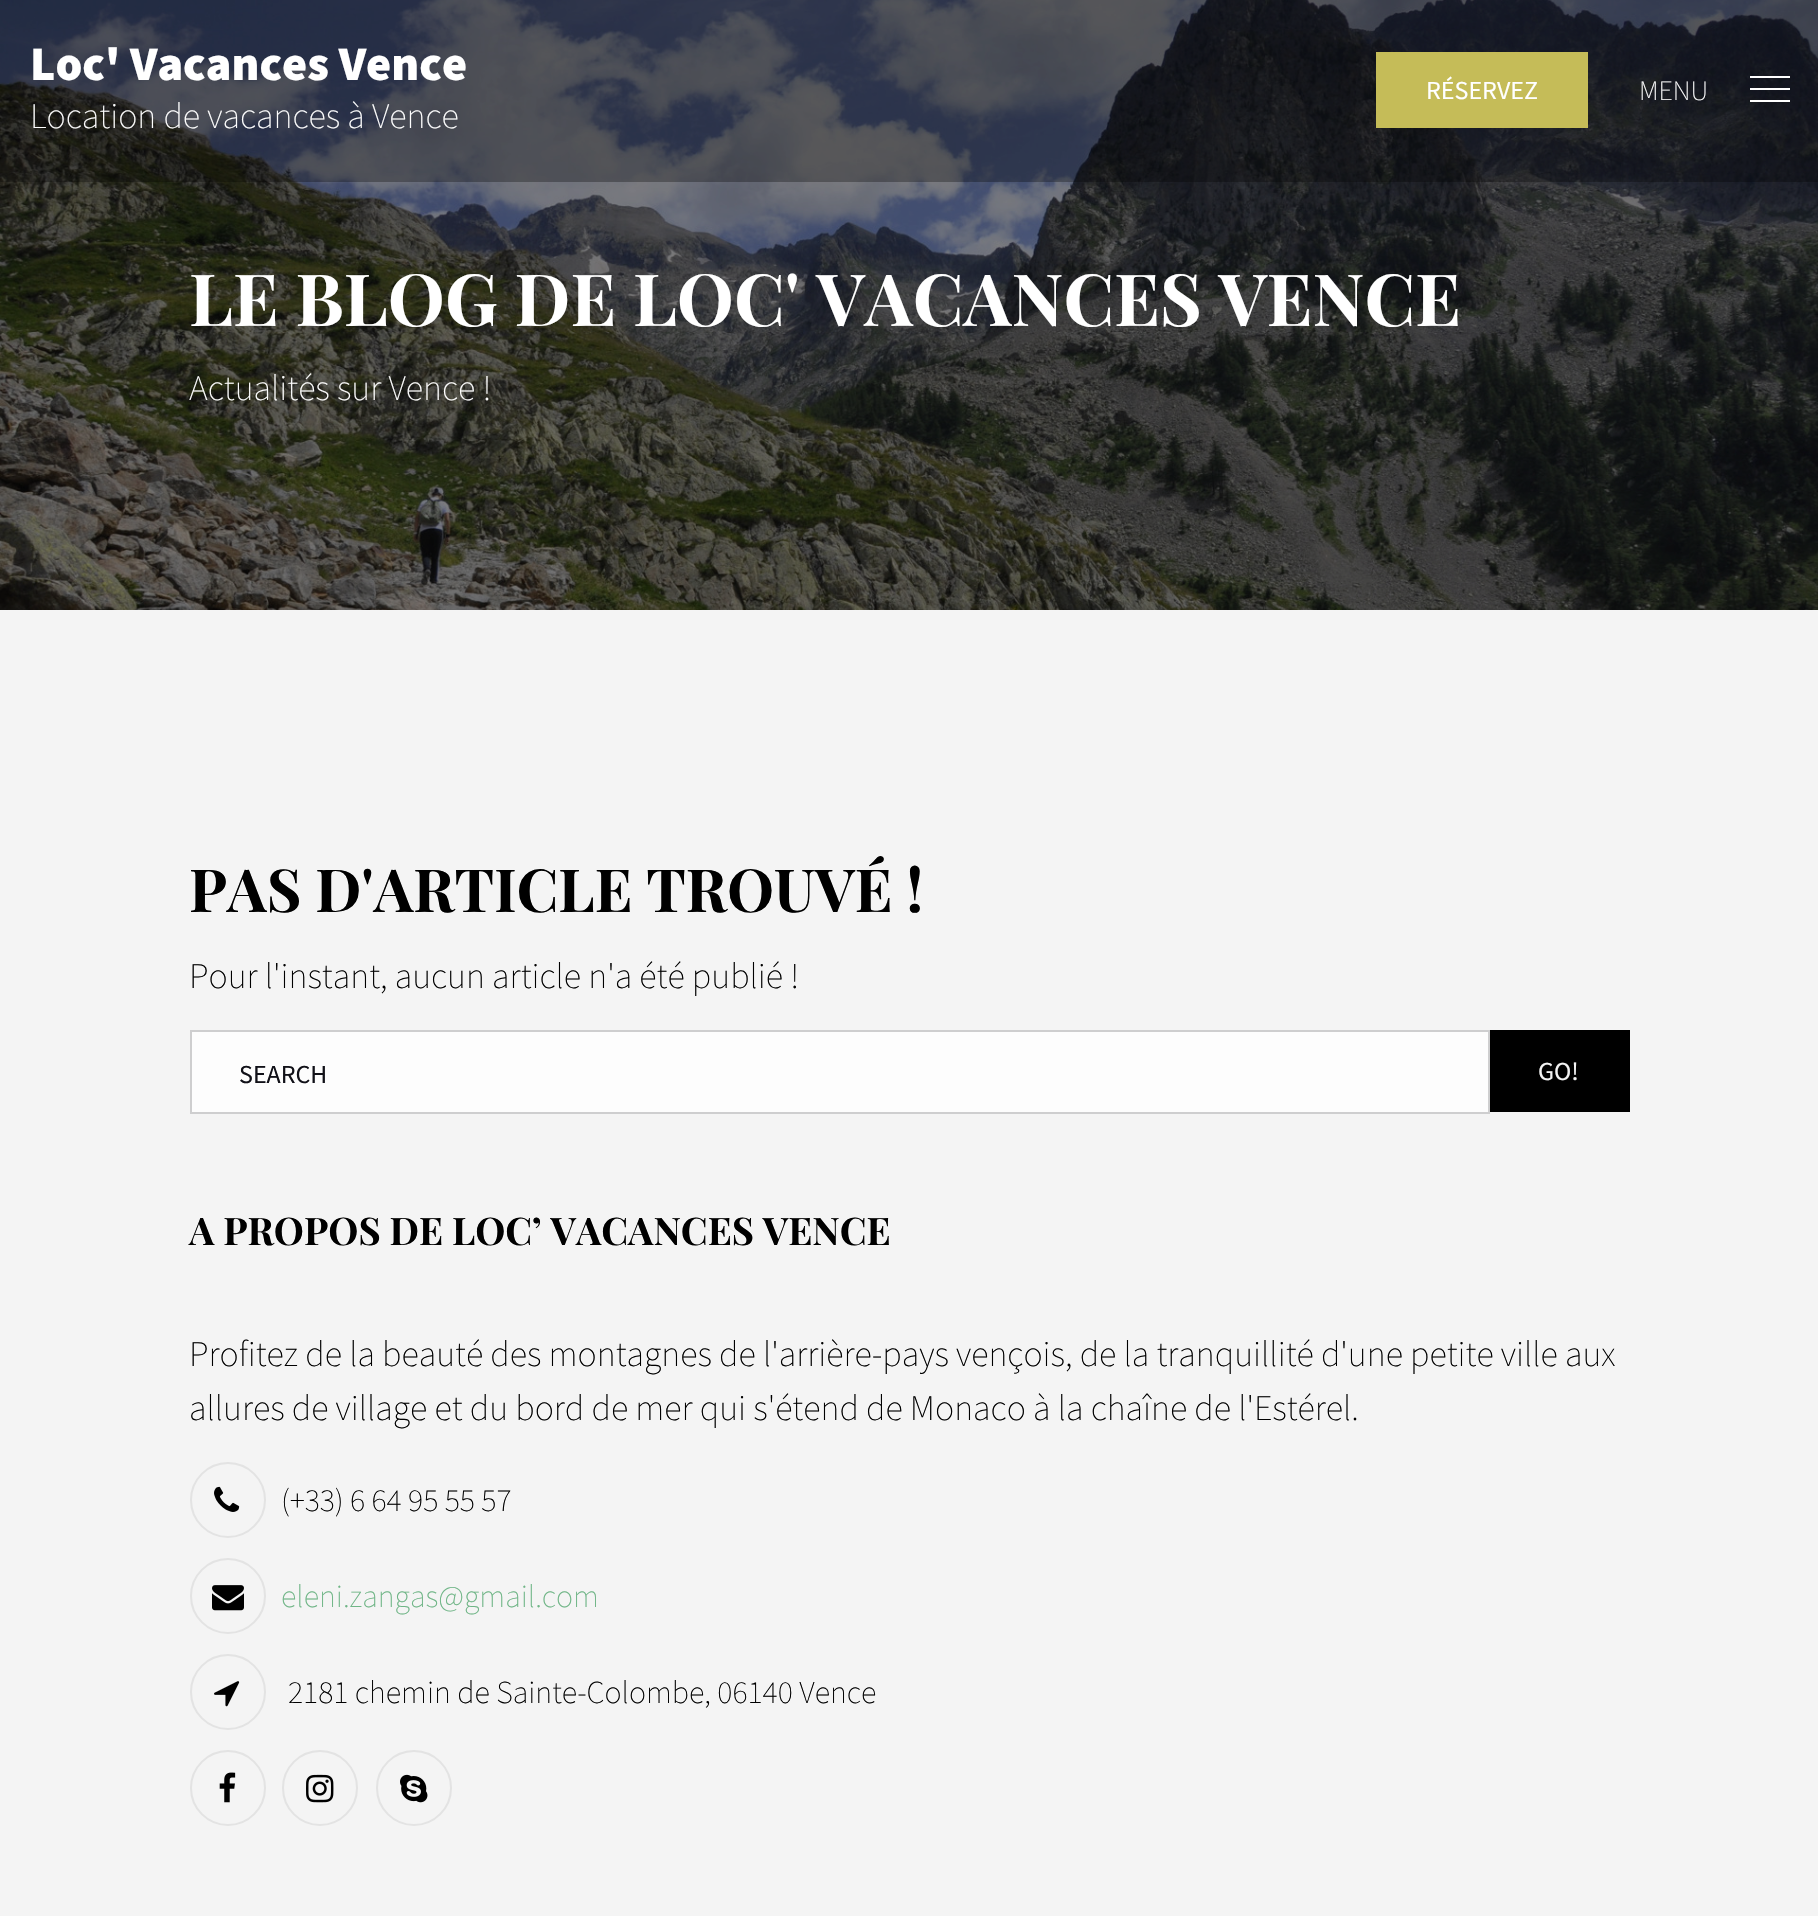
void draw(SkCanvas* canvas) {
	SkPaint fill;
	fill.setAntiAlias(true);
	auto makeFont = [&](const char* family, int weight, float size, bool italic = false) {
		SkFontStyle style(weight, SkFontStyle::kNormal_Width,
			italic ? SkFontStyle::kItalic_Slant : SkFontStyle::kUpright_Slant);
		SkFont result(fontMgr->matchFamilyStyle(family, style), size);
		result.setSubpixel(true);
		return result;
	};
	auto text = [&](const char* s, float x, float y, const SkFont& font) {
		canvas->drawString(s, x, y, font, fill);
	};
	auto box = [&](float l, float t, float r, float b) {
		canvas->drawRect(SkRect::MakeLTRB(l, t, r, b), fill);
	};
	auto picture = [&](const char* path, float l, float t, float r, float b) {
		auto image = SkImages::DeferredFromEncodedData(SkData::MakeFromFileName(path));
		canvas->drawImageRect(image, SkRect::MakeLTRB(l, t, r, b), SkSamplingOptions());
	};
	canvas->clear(0xFFF4F4F4);
	picture("image0.png", 0, 0, 1818, 610);
	fill.setColor(0x4D000000);
	box(0, 0, 1818, 182);
	fill.setColor(0xFFC5BC58);
	box(1376, 52, 1588, 128);
	fill.setColor(0xFFFFFFFF);
	box(1750, 76, 1790, 78);
	box(1750, 88, 1790, 90);
	box(1750, 100, 1790, 102);
	fill.setColor(0xFFFDFDFD);
	canvas->drawRect(SkRect::MakeLTRB(191, 1031, 1489, 1113), fill);
	fill.setStyle(SkPaint::kStroke_Style);
	fill.setStrokeWidth(2);
	fill.setColor(0xFFCECECF);
	canvas->drawRect(SkRect::MakeLTRB(191, 1031, 1489, 1113), fill);
	fill.setStyle(SkPaint::kFill_Style);
	fill.setColor(0xFF000000);
	box(1490, 1030, 1630, 1112);
	fill.setStyle(SkPaint::kStroke_Style);
	fill.setColor(0xFFE3E3E3);
	canvas->drawCircle(228, 1500, 37, fill);
	picture("image1.png", 214, 1486, 240, 1512);
	canvas->drawCircle(228, 1596, 37, fill);
	picture("image2.png", 212, 1585, 244, 1611);
	canvas->drawCircle(228, 1692, 37, fill);
	picture("image3.png", 214, 1681, 240, 1707);
	canvas->drawCircle(228, 1788, 37, fill);
	picture("image4.png", 219, 1772, 236, 1803);
	canvas->drawCircle(320, 1788, 37, fill);
	picture("image5.png", 306, 1774, 334, 1803);
	canvas->drawCircle(414, 1788, 37, fill);
	picture("image6.png", 400, 1774, 428, 1803);
	auto font1 = makeFont("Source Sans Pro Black", 900, 48);
	fill.setStyle(SkPaint::kFill_Style);
	fill.setColor(0xFFFFFFFF);
	text("Loc' Vacances Vence", 30, 80, font1);
	auto font2 = makeFont("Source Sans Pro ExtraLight", 200, 36);
	text("Location de vacances à Vence", 30, 128, font2);
	auto font3 = makeFont("Source Sans Pro", 400, 26);
	text("RÉSERVEZ", 1426, 99, font3);
	auto font4 = makeFont("Source Sans Pro ExtraLight", 200, 28);
	text("MENU", 1639, 100, font4);
	auto font5 = makeFont("Playfair Display", 700, 72);
	text("LE BLOG DE LOC' VACANCES VENCE", 189, 326, font5);
	text("Actualités sur Vence !", 189, 400, font2);
	auto font6 = makeFont("Playfair Display", 700, 59.4f);
	fill.setColor(0xFF000000);
	text("PAS D'ARTICLE TROUVÉ !", 189, 912, font6);
	text("Pour l'instant, aucun article n'a été publié !", 189, 988, font2);
	fill.setColor(0xFF111118);
	text("SEARCH", 239, 1083, font3);
	fill.setColor(0xFFF4F4F4);
	text("GO!", 1538, 1080, font3);
	auto font7 = makeFont("Playfair Display", 700, 38);
	fill.setColor(0xFF000000);
	text("A PROPOS DE LOC’ VACANCES VENCE", 189, 1245, font7);
	text("Profitez de la beauté des montagnes de l'arrière-pays vençois, de la tranquillité d'une petite ville aux", 189, 1366, font2);
	text("allures de village et du bord de mer qui s'étend de Monaco à la chaîne de l'Estérel.", 189, 1420, font2);
	auto font8 = makeFont("Source Sans Pro ExtraLight", 200, 32);
	text("(+33) 6 64 95 55 57", 281, 1511, font8);
	fill.setColor(0xFF6FB586);
	text("eleni.zangas@gmail.com", 281, 1607, font8);
	fill.setColor(0xFF000000);
	text("2181 chemin de Sainte-Colombe, 06140 Vence", 288, 1703, font8);
}
